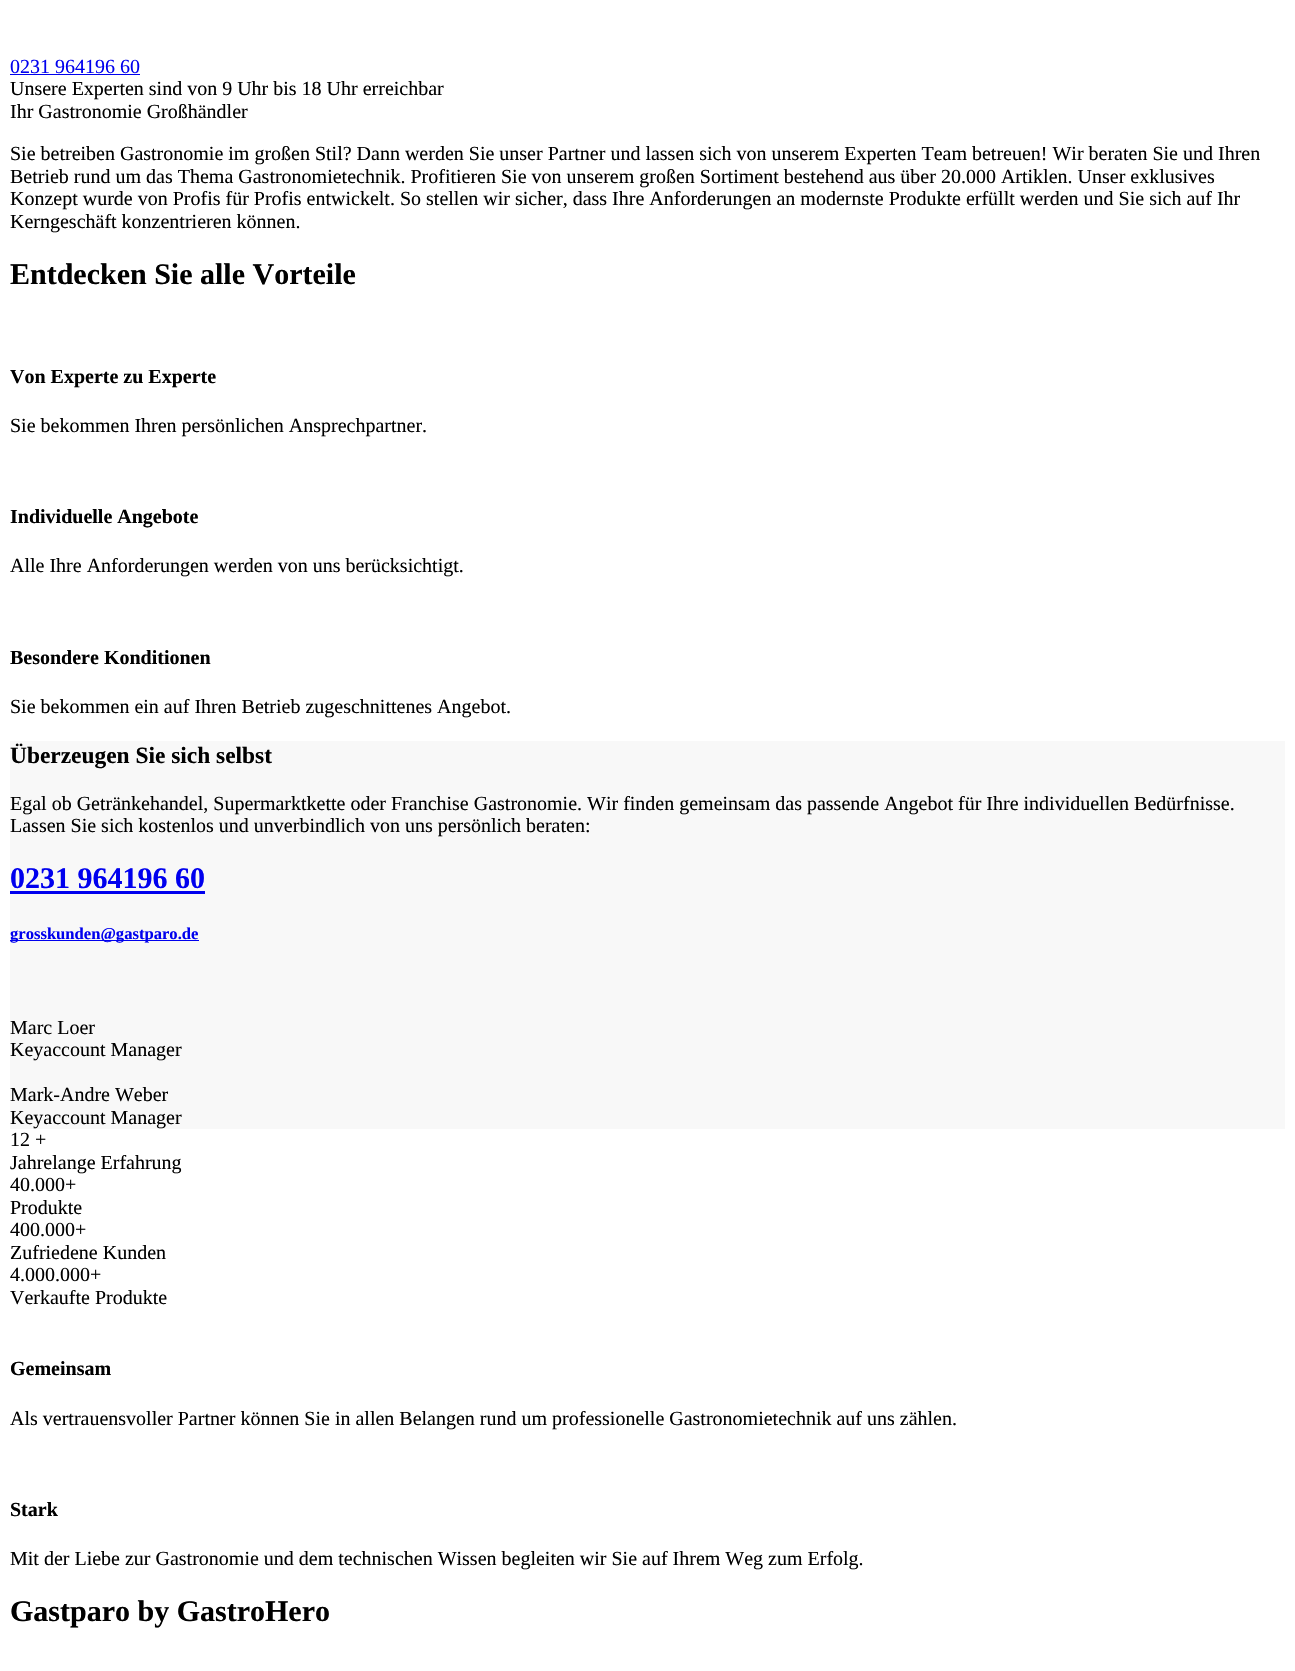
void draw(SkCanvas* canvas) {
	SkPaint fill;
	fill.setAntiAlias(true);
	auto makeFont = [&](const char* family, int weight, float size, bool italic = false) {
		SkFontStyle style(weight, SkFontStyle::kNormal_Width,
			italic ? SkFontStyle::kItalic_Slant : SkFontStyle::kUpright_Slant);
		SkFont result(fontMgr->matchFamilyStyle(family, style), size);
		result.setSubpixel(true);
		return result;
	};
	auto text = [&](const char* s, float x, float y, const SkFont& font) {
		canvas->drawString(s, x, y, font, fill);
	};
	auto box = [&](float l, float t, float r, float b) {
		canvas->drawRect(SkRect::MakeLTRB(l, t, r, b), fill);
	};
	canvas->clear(0xFFFFFFFF);
	fill.setColor(0xFF0000EE);
	box(10, 74, 140, 75);
	fill.setColor(0xFFF8F8F8);
	box(10, 741, 1285, 1129);
	fill.setColor(0xFF0000EE);
	box(10, 891, 205, 894);
	box(10, 940, 199, 941);
	auto font1 = makeFont("Liberation Serif", 400, 20);
	text("0231 964196 60", 10, 73, font1);
	fill.setColor(0xFF000000);
	text("Unsere Experten sind von 9 Uhr bis 18 Uhr erreichbar", 10, 95, font1);
	text("Ihr Gastronomie Großhändler", 10, 118, font1);
	text("Sie betreiben Gastronomie im großen Stil? Dann werden Sie unser Partner und lassen sich von unserem Experten Team betreuen! Wir beraten Sie und Ihren", 10, 160, font1);
	text("Betrieb rund um das Thema Gastronomietechnik. Profitieren Sie von unserem großen Sortiment bestehend aus über 20.000 Artiklen. Unser exklusives", 10, 183, font1);
	text("Konzept wurde von Profis für Profis entwickelt. So stellen wir sicher, dass Ihre Anforderungen an modernste Produkte erfüllt werden und Sie sich auf Ihr", 10, 205, font1);
	text("Kerngeschäft konzentrieren können.", 10, 228, font1);
	auto font2 = makeFont("Liberation Serif", 700, 30);
	text("Entdecken Sie alle Vorteile", 10, 284, font2);
	auto font3 = makeFont("Liberation Serif", 700, 20);
	text("Von Experte zu Experte", 10, 383, font3);
	text("Sie bekommen Ihren persönlichen Ansprechpartner.", 10, 432, font1);
	text("Individuelle Angebote", 10, 523, font3);
	text("Alle Ihre Anforderungen werden von uns berücksichtigt.", 10, 572, font1);
	text("Besondere Konditionen", 10, 664, font3);
	text("Sie bekommen ein auf Ihren Betrieb zugeschnittenes Angebot.", 10, 713, font1);
	auto font4 = makeFont("Liberation Serif", 700, 23.4f);
	text("Überzeugen Sie sich selbst", 10, 763, font4);
	text("Egal ob Getränkehandel, Supermarktkette oder Franchise Gastronomie. Wir finden gemeinsam das passende Angebot für Ihre individuellen Bedürfnisse.", 10, 810, font1);
	text("Lassen Sie sich kostenlos und unverbindlich von uns persönlich beraten:", 10, 832, font1);
	fill.setColor(0xFF0000EE);
	text("0231 964196 60", 10, 888, font2);
	auto font5 = makeFont("Liberation Serif", 700, 16.6f);
	text("grosskunden@gastparo.de", 10, 939, font5);
	fill.setColor(0xFF000000);
	text("Marc Loer", 10, 1034, font1);
	text("Keyaccount Manager", 10, 1056, font1);
	text("Mark-Andre Weber", 10, 1101, font1);
	text("Keyaccount Manager", 10, 1124, font1);
	text("12 +", 10, 1146, font1);
	text("Jahrelange Erfahrung", 10, 1169, font1);
	text("40.000+", 10, 1191, font1);
	text("Produkte", 10, 1214, font1);
	text("400.000+", 10, 1236, font1);
	text("Zufriedene Kunden", 10, 1259, font1);
	text("4.000.000+", 10, 1281, font1);
	text("Verkaufte Produkte", 10, 1304, font1);
	text("Gemeinsam", 10, 1375, font3);
	text("Als vertrauensvoller Partner können Sie in allen Belangen rund um professionelle Gastronomietechnik auf uns zählen.", 10, 1425, font1);
	text("Stark", 10, 1516, font3);
	text("Mit der Liebe zur Gastronomie und dem technischen Wissen begleiten wir Sie auf Ihrem Weg zum Erfolg.", 10, 1565, font1);
	text("Gastparo by GastroHero", 10, 1621, font2);
}
